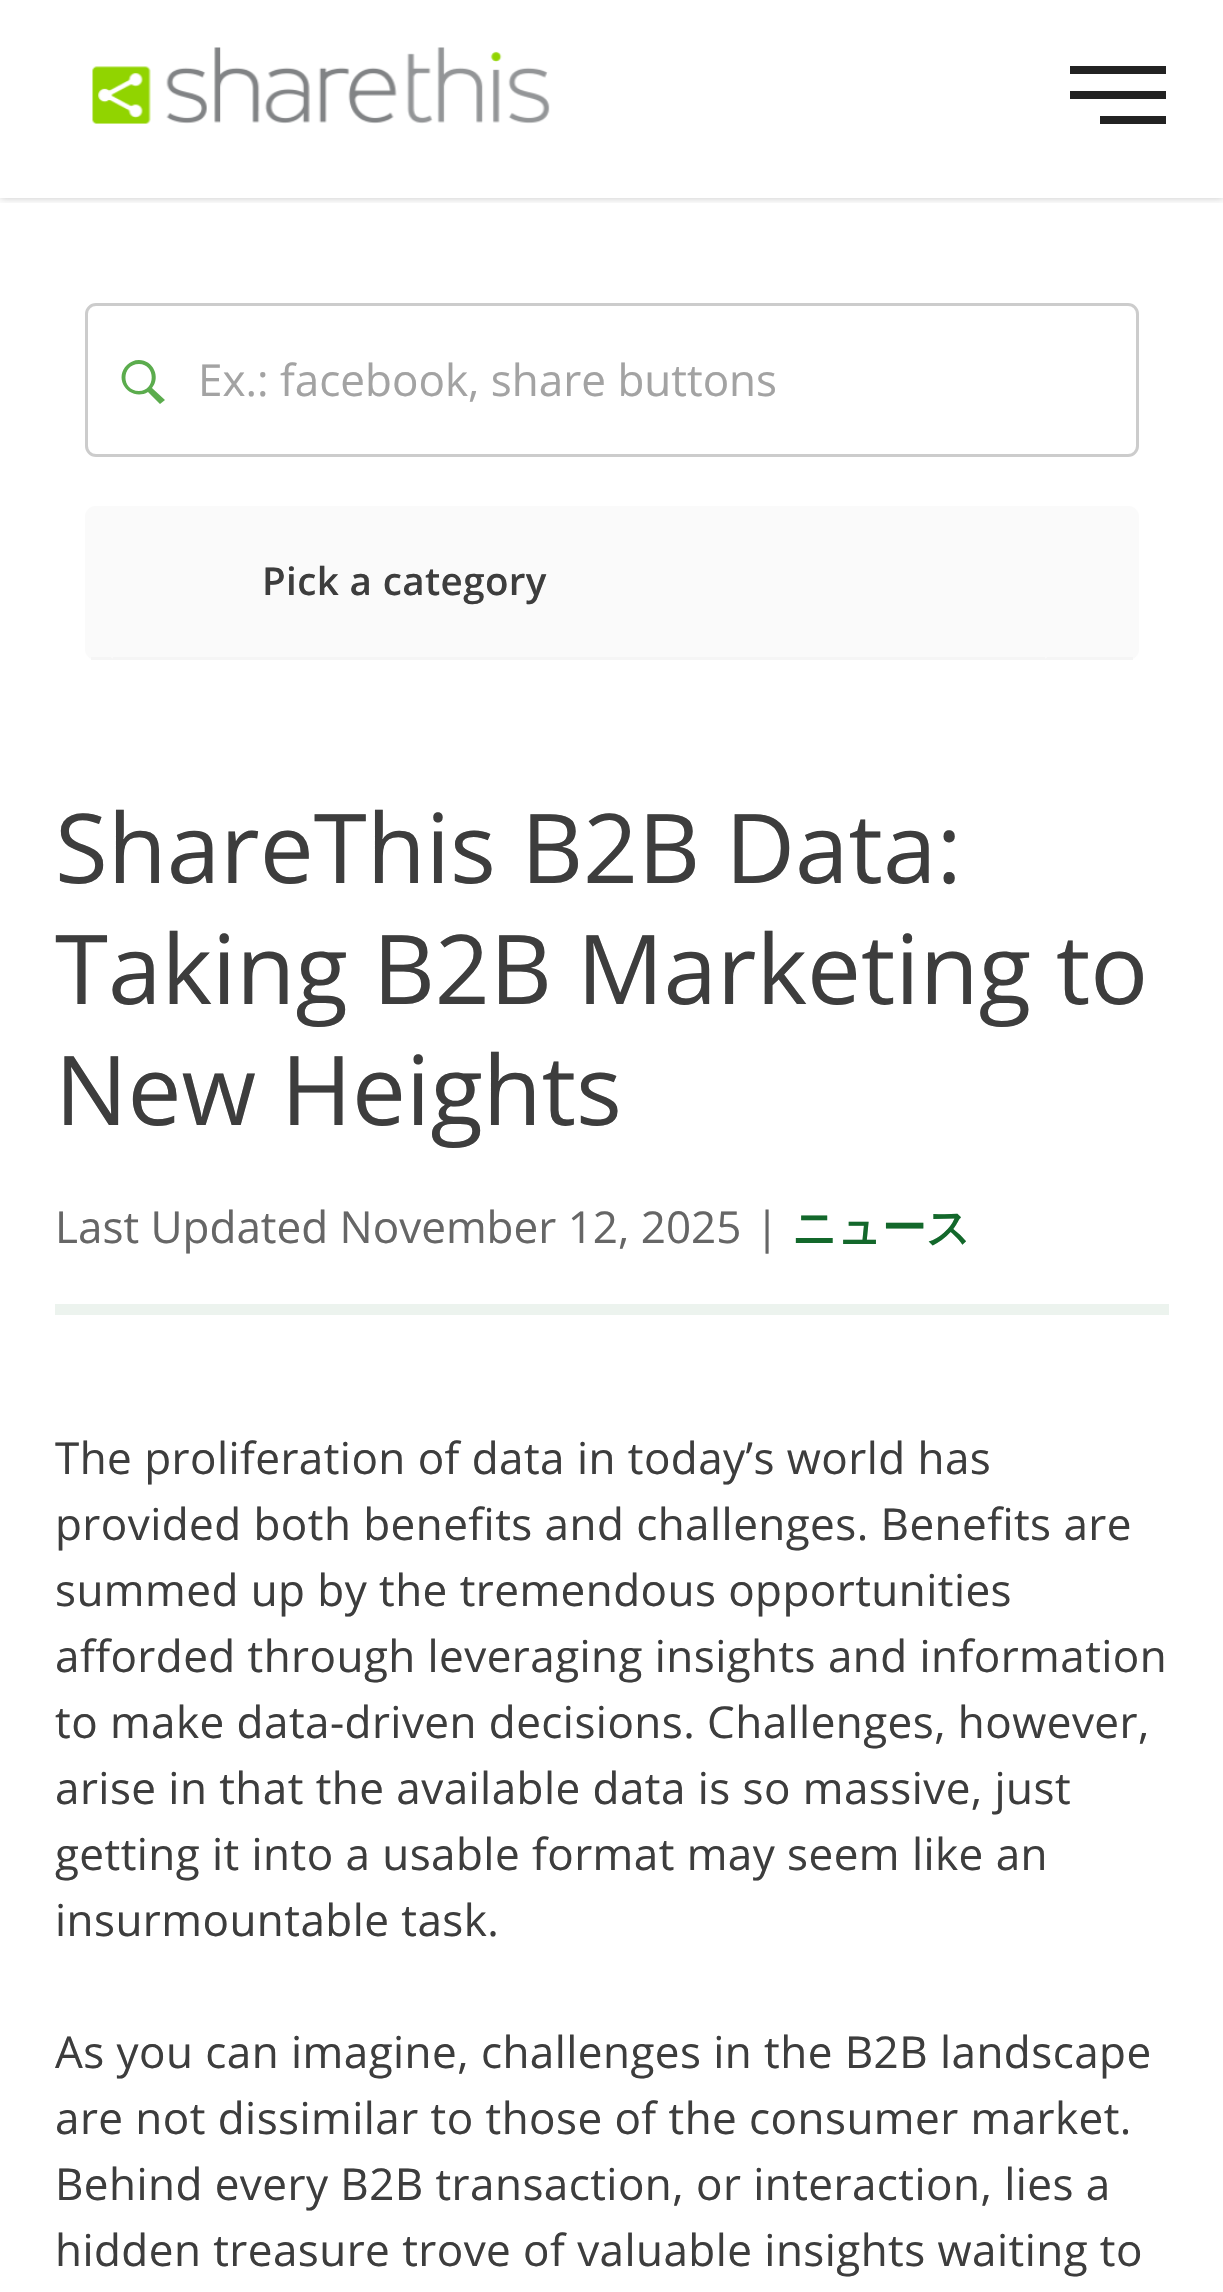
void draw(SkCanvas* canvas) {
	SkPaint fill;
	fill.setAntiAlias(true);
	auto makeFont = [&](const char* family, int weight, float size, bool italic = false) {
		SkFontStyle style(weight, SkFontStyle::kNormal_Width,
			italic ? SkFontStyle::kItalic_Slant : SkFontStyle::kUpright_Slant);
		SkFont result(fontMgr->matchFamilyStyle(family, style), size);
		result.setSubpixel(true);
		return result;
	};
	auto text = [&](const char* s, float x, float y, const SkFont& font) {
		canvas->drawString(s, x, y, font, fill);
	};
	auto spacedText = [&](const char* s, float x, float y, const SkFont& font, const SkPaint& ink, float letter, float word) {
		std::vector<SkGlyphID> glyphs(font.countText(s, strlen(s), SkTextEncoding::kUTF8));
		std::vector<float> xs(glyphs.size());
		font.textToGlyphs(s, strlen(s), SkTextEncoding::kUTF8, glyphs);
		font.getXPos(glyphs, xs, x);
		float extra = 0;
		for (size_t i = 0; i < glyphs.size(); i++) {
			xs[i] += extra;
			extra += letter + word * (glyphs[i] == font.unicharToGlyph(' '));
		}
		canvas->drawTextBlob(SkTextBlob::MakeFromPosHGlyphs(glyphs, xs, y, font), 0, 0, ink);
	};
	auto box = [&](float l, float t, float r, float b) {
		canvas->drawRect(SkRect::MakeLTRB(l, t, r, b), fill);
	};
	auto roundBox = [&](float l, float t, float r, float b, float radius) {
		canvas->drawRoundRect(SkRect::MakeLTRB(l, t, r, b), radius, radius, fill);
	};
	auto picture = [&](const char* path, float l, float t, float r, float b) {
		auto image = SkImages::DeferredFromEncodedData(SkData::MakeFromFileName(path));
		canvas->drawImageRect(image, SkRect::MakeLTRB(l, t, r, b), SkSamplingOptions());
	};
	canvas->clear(0xFFFFFFFF);
	canvas->save();
	canvas->clipRect(SkRect::MakeLTRB(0, 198, 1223, 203));
	fill.setColor(0x38000000);
	fill.setMaskFilter(SkMaskFilter::MakeBlur(kNormal_SkBlurStyle, 4));
	canvas->drawRect(SkRect::MakeLTRB(0, 0, 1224, 198), fill);
	fill.setMaskFilter(nullptr);
	canvas->restore();
	picture("image0.png", 92, 47, 550, 124);
	fill.setColor(0xFF222222);
	box(1070, 66, 1166, 74);
	box(1070, 91, 1166, 99);
	box(1100, 116, 1166, 124);
	fill.setStyle(SkPaint::kStroke_Style);
	fill.setStrokeWidth(3);
	fill.setColor(0xFFCCCCCC);
	canvas->drawRoundRect(SkRect::MakeLTRB(86.5f, 304.5f, 1137.5f, 455.5f), 9.5f, 9.5f, fill);
	fill.setStyle(SkPaint::kFill_Style);
	fill.setColor(0xFF5BAC4D);
	canvas->drawPath(SkPathBuilder(SkPathFillType::kEvenOdd).moveTo(139, 360).cubicTo(134, 360, 130, 362, 127, 365).cubicTo(112, 380, 131, 402, 148, 392).lineTo(160, 404).lineTo(165, 400).lineTo(152, 388).cubicTo(161, 377, 153, 360, 139, 360).close().moveTo(139, 364).cubicTo(156, 364, 156, 391, 139, 391).cubicTo(121, 391, 121, 364, 139, 364).close().detach(), fill);
	fill.setColor(0xFFFAFAFA);
	roundBox(85, 506, 1139, 660, 11);
	fill.setColor(0xFFF5F5F5);
	box(91, 657, 1133, 660);
	fill.setColor(0xFFFAFAFA);
	roundBox(107, 506, 1051, 660, 11);
	fill.setColor(0xFFF5F5F5);
	box(113, 657, 1045, 660);
	fill.setColor(0xFFECF3EE);
	box(55, 1304, 1169, 1315);
	auto font1 = makeFont("Open Sans", 400, 44);
	fill.setColor(0xFFA3A3A3);
	text("Ex.: facebook, share buttons", 198, 396, font1);
	auto font2 = makeFont("Open Sans", 600, 38.5f);
	fill.setColor(0xFF3D3D3D);
	spacedText("Pick a category", 262, 595, font2, fill, 0.4f, 0);
	auto font3 = makeFont("Open Sans", 400, 96.25f);
	text("ShareThis B2B Data:", 55, 883, font3);
	text("Taking B2B Marketing to", 55, 1004, font3);
	text("New Heights", 55, 1125, font3);
	fill.setColor(0xFF666666);
	text("Last Updated November 12, 2025", 55, 1243, font1);
	text("|", 755, 1243, font1);
	auto font4 = makeFont("WenQuanYi Zen Hei", 700, 44);
	fill.setColor(0xFF13682B);
	text("ニュース", 792, 1243, font4);
	fill.setColor(0xFF3D3D3D);
	spacedText("The proliferation of data in today’s world has", 55, 1474, font1, fill, 0.45f, 0);
	spacedText("provided both benefits and challenges. Benefits are", 55, 1540, font1, fill, 0.45f, 0);
	spacedText("summed up by the tremendous opportunities", 55, 1606, font1, fill, 0.45f, 0);
	spacedText("afforded through leveraging insights and information", 55, 1672, font1, fill, 0.45f, 0);
	spacedText("to make data-driven decisions. Challenges, however,", 55, 1738, font1, fill, 0.45f, 0);
	spacedText("arise in that the available data is so massive, just", 55, 1804, font1, fill, 0.45f, 0);
	spacedText("getting it into a usable format may seem like an", 55, 1870, font1, fill, 0.45f, 0);
	spacedText("insurmountable task.", 55, 1936, font1, fill, 0.45f, 0);
	spacedText("As you can imagine, challenges in the B2B landscape", 55, 2068, font1, fill, 0.45f, 0);
	spacedText("are not dissimilar to those of the consumer market.", 55, 2134, font1, fill, 0.45f, 0);
	spacedText("Behind every B2B transaction, or interaction, lies a", 55, 2200, font1, fill, 0.45f, 0);
	spacedText("hidden treasure trove of valuable insights waiting to", 55, 2266, font1, fill, 0.45f, 0);
}
